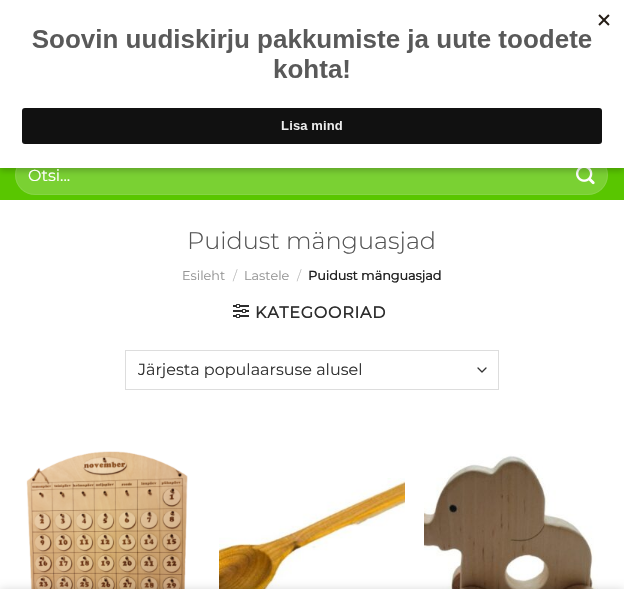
void draw(SkCanvas* canvas) {
	SkPaint fill;
	fill.setAntiAlias(true);
	auto makeFont = [&](const char* family, int weight, float size, bool italic = false) {
		SkFontStyle style(weight, SkFontStyle::kNormal_Width,
			italic ? SkFontStyle::kItalic_Slant : SkFontStyle::kUpright_Slant);
		SkFont result(fontMgr->matchFamilyStyle(family, style), size);
		result.setSubpixel(true);
		return result;
	};
	auto text = [&](const char* s, float x, float y, const SkFont& font) {
		canvas->drawString(s, x, y, font, fill);
	};
	auto spacedText = [&](const char* s, float x, float y, const SkFont& font, const SkPaint& ink, float letter, float word) {
		std::vector<SkGlyphID> glyphs(font.countText(s, strlen(s), SkTextEncoding::kUTF8));
		std::vector<float> xs(glyphs.size());
		font.textToGlyphs(s, strlen(s), SkTextEncoding::kUTF8, glyphs);
		font.getXPos(glyphs, xs, x);
		float extra = 0;
		for (size_t i = 0; i < glyphs.size(); i++) {
			xs[i] += extra;
			extra += letter + word * (glyphs[i] == font.unicharToGlyph(' '));
		}
		canvas->drawTextBlob(SkTextBlob::MakeFromPosHGlyphs(glyphs, xs, y, font), 0, 0, ink);
	};
	auto box = [&](float l, float t, float r, float b) {
		canvas->drawRect(SkRect::MakeLTRB(l, t, r, b), fill);
	};
	auto roundBox = [&](float l, float t, float r, float b, float radius) {
		canvas->drawRoundRect(SkRect::MakeLTRB(l, t, r, b), radius, radius, fill);
	};
	auto picture = [&](const char* path, float l, float t, float r, float b) {
		auto image = SkImages::DeferredFromEncodedData(SkData::MakeFromFileName(path));
		canvas->drawImageRect(image, SkRect::MakeLTRB(l, t, r, b), SkSamplingOptions());
	};
	canvas->clear(0xFFFFFFFF);
	fill.setColor(0xFF59C600);
	box(0, 168, 624, 200);
	fill.setColor(0xFF7AD133);
	roundBox(15, 155, 608, 195, 20);
	fill.setStyle(SkPaint::kStroke_Style);
	fill.setStrokeWidth(1);
	fill.setColor(0x17FFFFFF);
	canvas->drawRoundRect(SkRect::MakeLTRB(15.5f, 155.5f, 607.5f, 194.5f), 19.5f, 19.5f, fill);
	picture("image1.png", 576, 168, 595, 185);
	fill.setStyle(SkPaint::kFill_Style);
	fill.setColor(0x33000000);
	fill.setMaskFilter(SkMaskFilter::MakeBlur(kNormal_SkBlurStyle, 3));
	canvas->drawRect(SkRect::MakeLTRB(0, 3, 624, 171), fill);
	fill.setMaskFilter(nullptr);
	fill.setColor(0xFFFFFFFF);
	box(0, 0, 624, 168);
	picture("image0.png", 22, 14, 610, 144);
	picture("image2.png", 233, 304, 249, 318);
	fill.setStyle(SkPaint::kStroke_Style);
	fill.setStrokeWidth(1.3f);
	fill.setStrokeCap(SkPaint::kRound_Cap);
	fill.setStrokeJoin(SkPaint::kRound_Join);
	fill.setColor(0xFF333333);
	canvas->drawPath(SkPathBuilder().moveTo(478, 368).lineTo(482, 372).lineTo(486, 368).detach(), fill);
	fill.setStrokeWidth(1);
	fill.setStrokeCap(SkPaint::kButt_Cap);
	fill.setStrokeJoin(SkPaint::kMiter_Join);
	fill.setColor(0xFFDDDDDD);
	canvas->drawRect(SkRect::MakeLTRB(125.5f, 350.5f, 498.5f, 389.5f), fill);
	picture("image3.png", 26, 451, 188, 589);
	picture("image4.png", 219, 478, 405, 589);
	picture("image5.png", 424, 454, 598, 589);
	fill.setStyle(SkPaint::kFill_Style);
	fill.setColor(0x24000000);
	fill.setMaskFilter(SkMaskFilter::MakeBlur(kNormal_SkBlurStyle, 4.5f));
	canvas->drawRect(SkRect::MakeLTRB(0, 589, 624, 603), fill);
	fill.setMaskFilter(nullptr);
	auto font1 = makeFont("Montserrat", 400, 16);
	fill.setColor(0xFFFFFFFF);
	text("Otsi...", 28, 181, font1);
	auto font2 = makeFont("Montserrat", 300, 24);
	fill.setColor(0xFF555555);
	text("Puidust mänguasjad", 187, 249, font2);
	auto font3 = makeFont("Montserrat", 400, 12.75f);
	fill.setColor(0xFF949494);
	text("Esileht", 182, 280, font3);
	auto font4 = makeFont("Montserrat", 300, 12.75f);
	fill.setColor(0xFFB2B2B2);
	text("/", 233, 280, font4);
	fill.setColor(0xFF949494);
	text("Lastele", 244, 280, font3);
	fill.setColor(0xFFB2B2B2);
	text("/", 297, 280, font4);
	auto font5 = makeFont("Montserrat", 700, 12.75f);
	fill.setColor(0xFF222222);
	text("Puidust mänguasjad", 308, 280, font5);
	auto font6 = makeFont("Montserrat", 700, 16);
	fill.setColor(0xFF2D2D2D);
	spacedText("KATEGOORIAD", 255, 318, font6, fill, 0.75f, 0);
	fill.setColor(0xFF333333);
	text("Järjesta populaarsuse alusel", 138, 375, font1);
}
